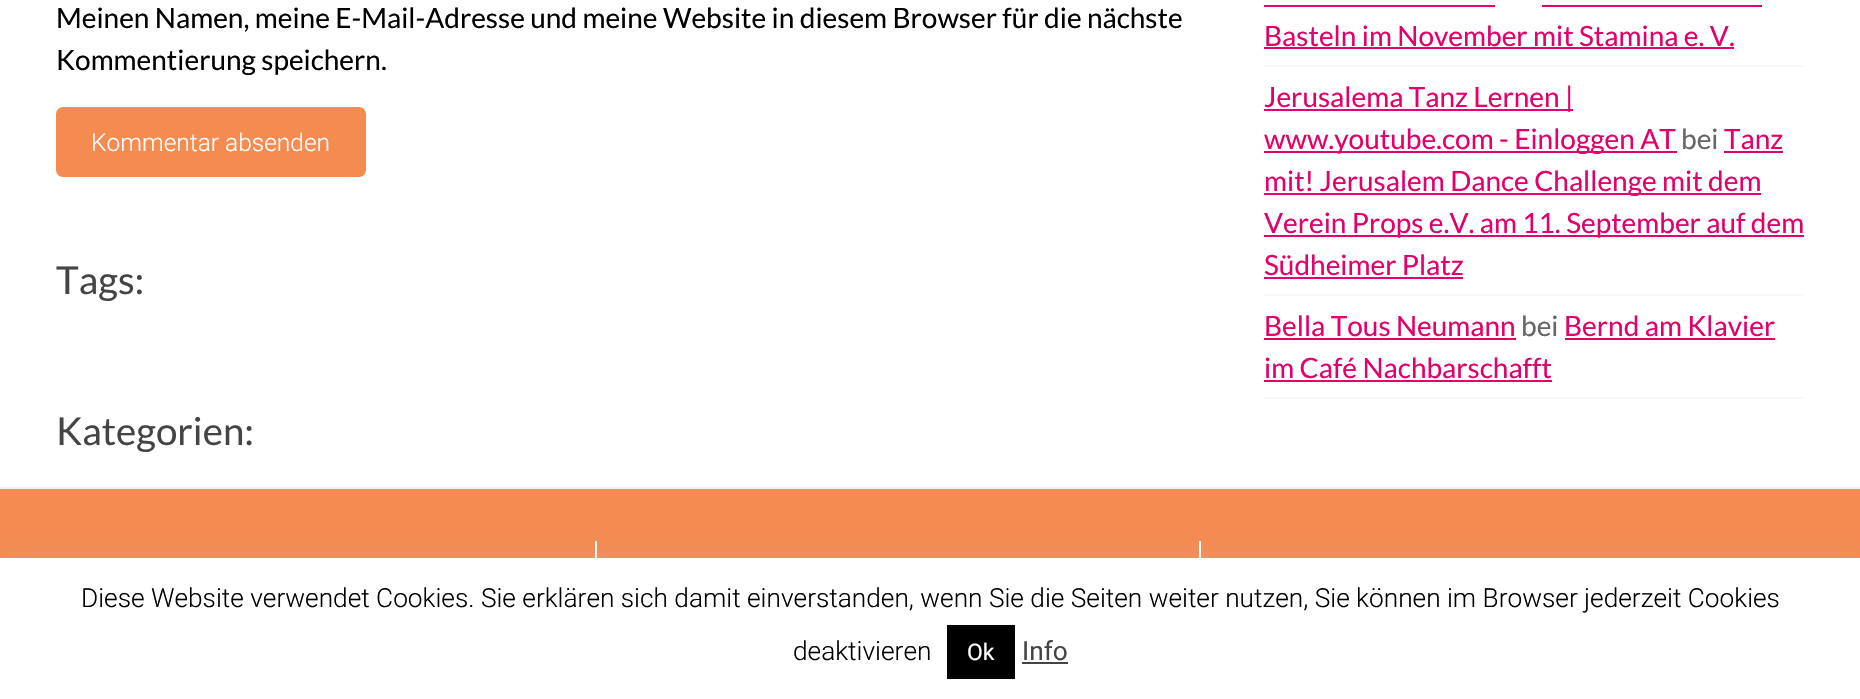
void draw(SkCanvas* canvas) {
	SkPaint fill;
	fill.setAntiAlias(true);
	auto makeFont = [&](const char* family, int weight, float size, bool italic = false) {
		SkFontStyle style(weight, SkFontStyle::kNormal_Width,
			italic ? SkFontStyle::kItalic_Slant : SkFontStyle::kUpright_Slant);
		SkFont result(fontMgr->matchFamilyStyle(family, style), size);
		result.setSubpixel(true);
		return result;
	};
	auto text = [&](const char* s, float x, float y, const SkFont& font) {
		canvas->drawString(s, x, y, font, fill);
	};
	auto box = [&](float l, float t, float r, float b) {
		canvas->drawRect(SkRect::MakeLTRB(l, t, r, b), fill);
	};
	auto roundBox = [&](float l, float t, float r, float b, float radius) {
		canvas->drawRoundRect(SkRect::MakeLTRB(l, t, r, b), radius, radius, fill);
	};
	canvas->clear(0xFFFFFFFF);
	fill.setColor(0xFFF48B51);
	roundBox(56, 107, 366, 177, 7);
	fill.setColor(0xFFF8F8F8);
	box(1264, 65, 1804, 67);
	fill.setColor(0xFFE3006A);
	box(1264, 5, 1495, 7);
	box(1542, 5, 1762, 7);
	box(1264, 47, 1734, 49);
	fill.setColor(0xFFF8F8F8);
	box(1264, 294, 1804, 296);
	fill.setColor(0xFFE3006A);
	box(1264, 109, 1573, 111);
	box(1264, 151, 1677, 153);
	box(1724, 151, 1783, 153);
	box(1264, 193, 1761, 195);
	box(1264, 235, 1804, 237);
	box(1264, 277, 1463, 279);
	fill.setColor(0xFFF8F8F8);
	box(1264, 397, 1804, 399);
	fill.setColor(0xFFE3006A);
	box(1264, 338, 1516, 340);
	box(1565, 338, 1775, 340);
	box(1264, 380, 1552, 382);
	fill.setColor(0xFFF48B51);
	box(0, 489, 1860, 558);
	fill.setColor(0xFFF2F2F2);
	box(0, 487, 1860, 489);
	fill.setColor(0xFFFFFFFF);
	box(595, 541, 597, 558);
	box(1199, 541, 1201, 558);
	fill.setColor(0x4DACABAB);
	fill.setMaskFilter(SkMaskFilter::MakeBlur(kNormal_SkBlurStyle, 9));
	canvas->drawRect(SkRect::MakeLTRB(0, 557, 1860, 698), fill);
	fill.setMaskFilter(nullptr);
	fill.setColor(0xFFFFFFFF);
	box(0, 558, 1860, 699);
	fill.setColor(0xFF000000);
	box(947, 625, 1015, 679);
	fill.setColor(0xFF444444);
	box(1022, 662, 1068, 664);
	auto font1 = makeFont("Lato", 400, 28);
	fill.setColor(0xFF000000);
	text("Meinen Namen, meine E-Mail-Adresse und meine Website in diesem Browser für die nächste", 56, 28, font1);
	text("Kommentierung speichern.", 56, 70, font1);
	auto font2 = makeFont("Roboto", 300, 24.5f);
	fill.setColor(0xFFFFFFFF);
	text("Kommentar absenden", 91, 151, font2);
	auto font3 = makeFont("Lato", 400, 38.5f);
	fill.setColor(0xFF444444);
	text("Tags:", 56, 294, font3);
	text("Kategorien:", 56, 445, font3);
	fill.setColor(0xFFE3006A);
	text("Basteln im November mit Stamina e. V.", 1264, 46, font1);
	text("Jerusalema Tanz Lernen |", 1264, 107, font1);
	text("www.youtube.com - Einloggen AT", 1264, 149, font1);
	fill.setColor(0xFF666666);
	text("bei", 1681, 149, font1);
	fill.setColor(0xFFE3006A);
	text("Tanz", 1724, 149, font1);
	text("mit! Jerusalem Dance Challenge mit dem", 1264, 191, font1);
	text("Verein Props e.V. am 11. September auf dem", 1264, 233, font1);
	text("Südheimer Platz", 1264, 275, font1);
	text("Bella Tous Neumann", 1264, 336, font1);
	fill.setColor(0xFF666666);
	text("bei", 1521, 336, font1);
	fill.setColor(0xFFE3006A);
	text("Bernd am Klavier", 1564, 336, font1);
	text("im Café Nachbarschafft", 1264, 378, font1);
	auto font4 = makeFont("Roboto", 300, 26.25f);
	fill.setColor(0xFF000000);
	text("Diese Website verwendet Cookies. Sie erklären sich damit einverstanden, wenn Sie die Seiten weiter nutzen, Sie können im Browser jederzeit Cookies", 81, 607, font4);
	text("deaktivieren", 793, 660, font4);
	auto font5 = makeFont("Roboto", 400, 23);
	fill.setColor(0xFFFFFFFF);
	text("Ok", 967, 660, font5);
	auto font6 = makeFont("Roboto", 400, 26.25f);
	fill.setColor(0xFF444444);
	text("Info", 1022, 660, font6);
}
